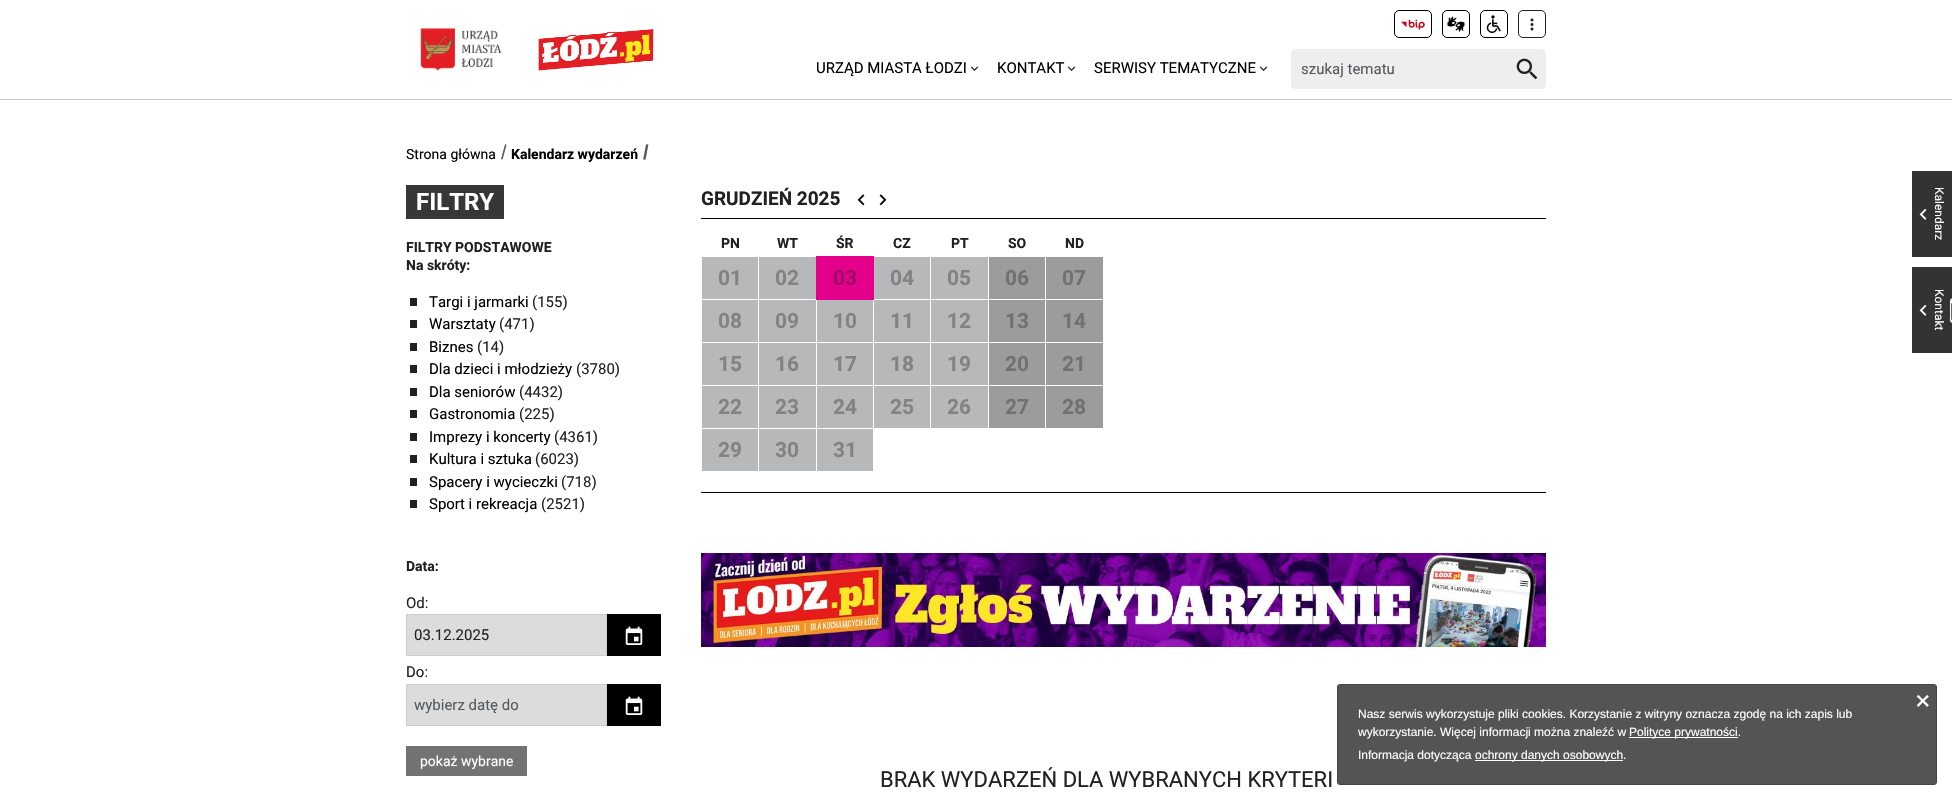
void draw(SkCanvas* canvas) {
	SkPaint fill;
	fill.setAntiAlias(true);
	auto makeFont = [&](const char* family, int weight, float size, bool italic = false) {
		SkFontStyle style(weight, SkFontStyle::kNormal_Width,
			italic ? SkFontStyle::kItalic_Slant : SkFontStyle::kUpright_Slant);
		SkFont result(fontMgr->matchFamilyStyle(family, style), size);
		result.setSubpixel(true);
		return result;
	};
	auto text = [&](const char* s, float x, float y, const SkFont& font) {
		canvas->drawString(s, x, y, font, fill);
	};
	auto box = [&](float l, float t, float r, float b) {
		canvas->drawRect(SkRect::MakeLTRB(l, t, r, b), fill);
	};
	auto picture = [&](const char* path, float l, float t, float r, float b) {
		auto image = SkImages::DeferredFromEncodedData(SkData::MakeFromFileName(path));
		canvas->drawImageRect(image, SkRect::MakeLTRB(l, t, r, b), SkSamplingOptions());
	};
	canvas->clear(0xFFFFFFFF);
	fill.setColor(0xFFCCCCCC);
	box(0, 99, 1952, 100);
	picture("image0.png", 420, 28, 502, 71);
	picture("image1.png", 538, 29, 654, 71);
	fill.setStyle(SkPaint::kStroke_Style);
	fill.setStrokeWidth(1);
	fill.setColor(0xFF000000);
	canvas->drawRoundRect(SkRect::MakeLTRB(1394.5f, 10.5f, 1431.5f, 37.5f), 4.5f, 4.5f, fill);
	picture("image2.png", 1401, 19, 1425, 30);
	canvas->drawRoundRect(SkRect::MakeLTRB(1442.5f, 10.5f, 1469.5f, 37.5f), 4.5f, 4.5f, fill);
	picture("image3.png", 1447, 16, 1465, 32);
	canvas->drawRoundRect(SkRect::MakeLTRB(1480.5f, 10.5f, 1507.5f, 37.5f), 4.5f, 4.5f, fill);
	picture("image4.png", 1486, 15, 1501, 33);
	fill.setColor(0xFF212121);
	canvas->drawRoundRect(SkRect::MakeLTRB(1518.5f, 10.5f, 1545.5f, 37.5f), 4.5f, 4.5f, fill);
	picture("image5.png", 1530, 18, 1534, 31);
	picture("image6.png", 970, 66, 979, 71);
	picture("image6.png", 1067, 66, 1076, 71);
	picture("image6.png", 1259, 66, 1268, 71);
	fill.setStyle(SkPaint::kFill_Style);
	fill.setColor(0xFFEEEEEE);
	canvas->drawPath(SkPathBuilder().moveTo(1296, 49).lineTo(1508, 49).lineTo(1508, 89).lineTo(1296, 89).cubicTo(1293, 89, 1291, 87, 1291, 84).lineTo(1291, 54).cubicTo(1291, 51, 1293, 49, 1296, 49).close().detach(), fill);
	canvas->drawPath(SkPathBuilder().moveTo(1508, 49).lineTo(1541, 49).cubicTo(1544, 49, 1546, 51, 1546, 54).lineTo(1546, 84).cubicTo(1546, 87, 1544, 89, 1541, 89).lineTo(1508, 89).close().detach(), fill);
	picture("image7.png", 1516, 58, 1538, 80);
	fill.setColor(0xFF373737);
	box(406, 185, 504, 219);
	fill.setColor(0xFF212121);
	box(410, 298, 417, 306);
	box(410, 320, 417, 328);
	box(410, 343, 417, 351);
	box(410, 365, 417, 373);
	box(410, 388, 417, 396);
	box(410, 410, 417, 418);
	box(410, 433, 417, 441);
	box(410, 455, 417, 463);
	box(410, 478, 417, 486);
	box(410, 500, 417, 508);
	fill.setColor(0xFFDCDCDC);
	canvas->drawRect(SkRect::MakeLTRB(406.5f, 614.5f, 606.5f, 655.5f), fill);
	fill.setStyle(SkPaint::kStroke_Style);
	fill.setColor(0xFFCCCCCC);
	canvas->drawRect(SkRect::MakeLTRB(406.5f, 614.5f, 606.5f, 655.5f), fill);
	fill.setStyle(SkPaint::kFill_Style);
	fill.setColor(0xFF000000);
	box(607, 614, 661, 656);
	picture("image8.png", 625, 626, 643, 645);
	fill.setColor(0xFFDCDCDC);
	canvas->drawRect(SkRect::MakeLTRB(406.5f, 684.5f, 606.5f, 725.5f), fill);
	fill.setStyle(SkPaint::kStroke_Style);
	fill.setColor(0xFFCCCCCC);
	canvas->drawRect(SkRect::MakeLTRB(406.5f, 684.5f, 606.5f, 725.5f), fill);
	fill.setStyle(SkPaint::kFill_Style);
	fill.setColor(0xFF000000);
	box(607, 684, 661, 726);
	picture("image8.png", 625, 696, 643, 715);
	fill.setColor(0xFF737373);
	box(406, 746, 527, 776);
	fill.setColor(0xFF000000);
	box(701, 218, 1546, 219);
	picture("image9.png", 857, 194, 865, 206);
	picture("image10.png", 879, 194, 887, 206);
	fill.setColor(0xFFB7B8B9);
	box(702, 257, 758, 299);
	box(759, 257, 816, 299);
	fill.setColor(0xFFE3008A);
	box(817, 257, 873, 299);
	fill.setStyle(SkPaint::kStroke_Style);
	canvas->drawRect(SkRect::MakeLTRB(816.5f, 256.5f, 873.5f, 299.5f), fill);
	fill.setStyle(SkPaint::kFill_Style);
	fill.setColor(0xFFB7B8B9);
	box(874, 257, 930, 299);
	box(931, 257, 988, 299);
	fill.setColor(0xFF9B9C9D);
	box(989, 257, 1045, 299);
	box(1046, 257, 1103, 299);
	fill.setColor(0xFFB7B8B9);
	box(702, 300, 758, 342);
	box(759, 300, 816, 342);
	box(817, 300, 873, 342);
	box(874, 300, 930, 342);
	box(931, 300, 988, 342);
	fill.setColor(0xFF9B9C9D);
	box(989, 300, 1045, 342);
	box(1046, 300, 1103, 342);
	fill.setColor(0xFFB7B8B9);
	box(702, 343, 758, 385);
	box(759, 343, 816, 385);
	box(817, 343, 873, 385);
	box(874, 343, 930, 385);
	box(931, 343, 988, 385);
	fill.setColor(0xFF9B9C9D);
	box(989, 343, 1045, 385);
	box(1046, 343, 1103, 385);
	fill.setColor(0xFFB7B8B9);
	box(702, 386, 758, 428);
	box(759, 386, 816, 428);
	box(817, 386, 873, 428);
	box(874, 386, 930, 428);
	box(931, 386, 988, 428);
	fill.setColor(0xFF9B9C9D);
	box(989, 386, 1045, 428);
	box(1046, 386, 1103, 428);
	fill.setColor(0xFFB7B8B9);
	box(702, 429, 758, 471);
	box(759, 429, 816, 471);
	box(817, 429, 873, 471);
	fill.setColor(0xFF000000);
	box(701, 492, 1546, 493);
	picture("image11.png", 701, 553, 1546, 647);
	fill.setColor(0xFF333333);
	box(1912, 171, 1952, 257);
	picture("image12.png", 1919, 208, 1927, 220);
	box(1912, 267, 1952, 353);
	picture("image12.png", 1919, 304, 1927, 316);
	picture("image13.png", 1949, 298, 1952, 323);
	fill.setColor(0xCC292929);
	canvas->drawRoundRect(SkRect::MakeLTRB(1337.5f, 684.5f, 1936.5f, 784.5f), 2.5f, 2.5f, fill);
	fill.setStyle(SkPaint::kStroke_Style);
	fill.setColor(0xFF444444);
	canvas->drawRoundRect(SkRect::MakeLTRB(1337.5f, 684.5f, 1936.5f, 784.5f), 2.5f, 2.5f, fill);
	fill.setStyle(SkPaint::kFill_Style);
	fill.setColor(0xFFFFFFFF);
	box(1629, 737, 1738, 738);
	box(1475, 760, 1623, 761);
	auto font1 = makeFont("Roboto", 400, 15);
	fill.setColor(0xFF000000);
	text("URZĄD MIASTA ŁODZI", 816, 73, font1);
	text("KONTAKT", 997, 73, font1);
	text("SERWISY TEMATYCZNE", 1094, 73, font1);
	fill.setColor(0xFF565A5E);
	text("szukaj tematu", 1301, 74, font1);
	auto font2 = makeFont("Roboto", 400, 14);
	fill.setColor(0xFF000000);
	text("Strona główna", 406, 159, font2);
	auto font3 = makeFont("Liberation Sans", 400, 20);
	fill.setColor(0xFF565A5E);
	text("/", 501, 159, font3);
	auto font4 = makeFont("Roboto", 700, 14);
	fill.setColor(0xFF000000);
	text("Kalendarz wydarzeń", 511, 159, font4);
	auto font5 = makeFont("Liberation Sans", 700, 20);
	fill.setColor(0xFF565A5E);
	text("/", 643, 159, font5);
	auto font6 = makeFont("Roboto", 700, 24);
	fill.setColor(0xFFFFFFFF);
	text("FILTRY", 416, 210, font6);
	fill.setColor(0xFF212121);
	text("FILTRY PODSTAWOWE", 406, 252, font4);
	text("Na skróty:", 406, 270, font4);
	fill.setColor(0xFF000000);
	text("Targi i jarmarki", 429, 307, font1);
	fill.setColor(0xFF212121);
	text("(155)", 532, 307, font1);
	fill.setColor(0xFF000000);
	text("Warsztaty", 429, 329, font1);
	fill.setColor(0xFF212121);
	text("(471)", 499, 329, font1);
	fill.setColor(0xFF000000);
	text("Biznes", 429, 352, font1);
	fill.setColor(0xFF212121);
	text("(14)", 477, 352, font1);
	fill.setColor(0xFF000000);
	text("Dla dzieci i młodzieży", 429, 374, font1);
	fill.setColor(0xFF212121);
	text("(3780)", 576, 374, font1);
	fill.setColor(0xFF000000);
	text("Dla seniorów", 429, 397, font1);
	fill.setColor(0xFF212121);
	text("(4432)", 519, 397, font1);
	fill.setColor(0xFF000000);
	text("Gastronomia", 429, 419, font1);
	fill.setColor(0xFF212121);
	text("(225)", 519, 419, font1);
	fill.setColor(0xFF000000);
	text("Imprezy i koncerty", 429, 442, font1);
	fill.setColor(0xFF212121);
	text("(4361)", 554, 442, font1);
	fill.setColor(0xFF000000);
	text("Kultura i sztuka", 429, 464, font1);
	fill.setColor(0xFF212121);
	text("(6023)", 535, 464, font1);
	fill.setColor(0xFF000000);
	text("Spacery i wycieczki", 429, 487, font1);
	fill.setColor(0xFF212121);
	text("(718)", 561, 487, font1);
	fill.setColor(0xFF000000);
	text("Sport i rekreacja", 429, 509, font1);
	fill.setColor(0xFF212121);
	text("(2521)", 541, 509, font1);
	text("Data:", 406, 571, font4);
	text("Od:", 406, 608, font1);
	text("03.12.2025", 414, 640, font1);
	text("Do:", 406, 677, font1);
	fill.setColor(0xFF565A5E);
	text("wybierz datę do", 414, 710, font1);
	fill.setColor(0xFFFFFFFF);
	text("pokaż wybrane", 420, 766, font2);
	auto font7 = makeFont("Roboto", 700, 19);
	fill.setColor(0xFF212121);
	text("GRUDZIEŃ 2025", 701, 205, font7);
	text("PN", 721, 248, font4);
	text("WT", 777, 248, font4);
	text("ŚR", 836, 248, font4);
	text("CZ", 893, 248, font4);
	text("PT", 951, 248, font4);
	text("SO", 1008, 248, font4);
	text("ND", 1065, 248, font4);
	auto font8 = makeFont("Roboto", 700, 21);
	fill.setColor(0xFF838384);
	text("01", 718, 285, font8);
	text("02", 775, 285, font8);
	fill.setColor(0xFF9F0C65);
	text("03", 833, 285, font8);
	fill.setColor(0xFF838384);
	text("04", 890, 285, font8);
	text("05", 947, 285, font8);
	fill.setColor(0xFF707172);
	text("06", 1005, 285, font8);
	text("07", 1062, 285, font8);
	fill.setColor(0xFF838384);
	text("08", 718, 328, font8);
	text("09", 775, 328, font8);
	text("10", 833, 328, font8);
	text("11", 890, 328, font8);
	text("12", 947, 328, font8);
	fill.setColor(0xFF707172);
	text("13", 1005, 328, font8);
	text("14", 1062, 328, font8);
	fill.setColor(0xFF838384);
	text("15", 718, 371, font8);
	text("16", 775, 371, font8);
	text("17", 833, 371, font8);
	text("18", 890, 371, font8);
	text("19", 947, 371, font8);
	fill.setColor(0xFF707172);
	text("20", 1005, 371, font8);
	text("21", 1062, 371, font8);
	fill.setColor(0xFF838384);
	text("22", 718, 414, font8);
	text("23", 775, 414, font8);
	text("24", 833, 414, font8);
	text("25", 890, 414, font8);
	text("26", 947, 414, font8);
	fill.setColor(0xFF707172);
	text("27", 1005, 414, font8);
	text("28", 1062, 414, font8);
	fill.setColor(0xFF838384);
	text("29", 718, 457, font8);
	text("30", 775, 457, font8);
	text("31", 833, 457, font8);
	auto font9 = makeFont("Roboto", 400, 22);
	fill.setColor(0xFF212121);
	text("BRAK WYDARZEŃ DLA WYBRANYCH KRYTERI", 880, 787, font9);
	auto font10 = makeFont("Roboto", 400, 12);
	fill.setColor(0xFFFFFFFF);
	canvas->save();
	canvas->rotate(90, 1935, 187);
	text("Kalendarz", 1935, 187, font10);
	canvas->restore();
	canvas->save();
	canvas->rotate(90, 1935, 289);
	text("Kontakt", 1935, 289, font10);
	canvas->restore();
	auto font11 = makeFont("DejaVu Sans Mono", 400, 26);
	text("×", 1915, 709, font11);
	auto font12 = makeFont("Liberation Sans", 400, 12);
	text("Nasz serwis wykorzystuje pliki cookies. Korzystanie z witryny oznacza zgodę na ich zapis lub", 1358, 718, font12);
	text("wykorzystanie. Więcej informacji można znaleźć w", 1358, 736, font12);
	text("Polityce prywatności.", 1629, 736, font12);
	text("Informacja dotycząca", 1358, 759, font12);
	text("ochrony danych osobowych.", 1475, 759, font12);
}
